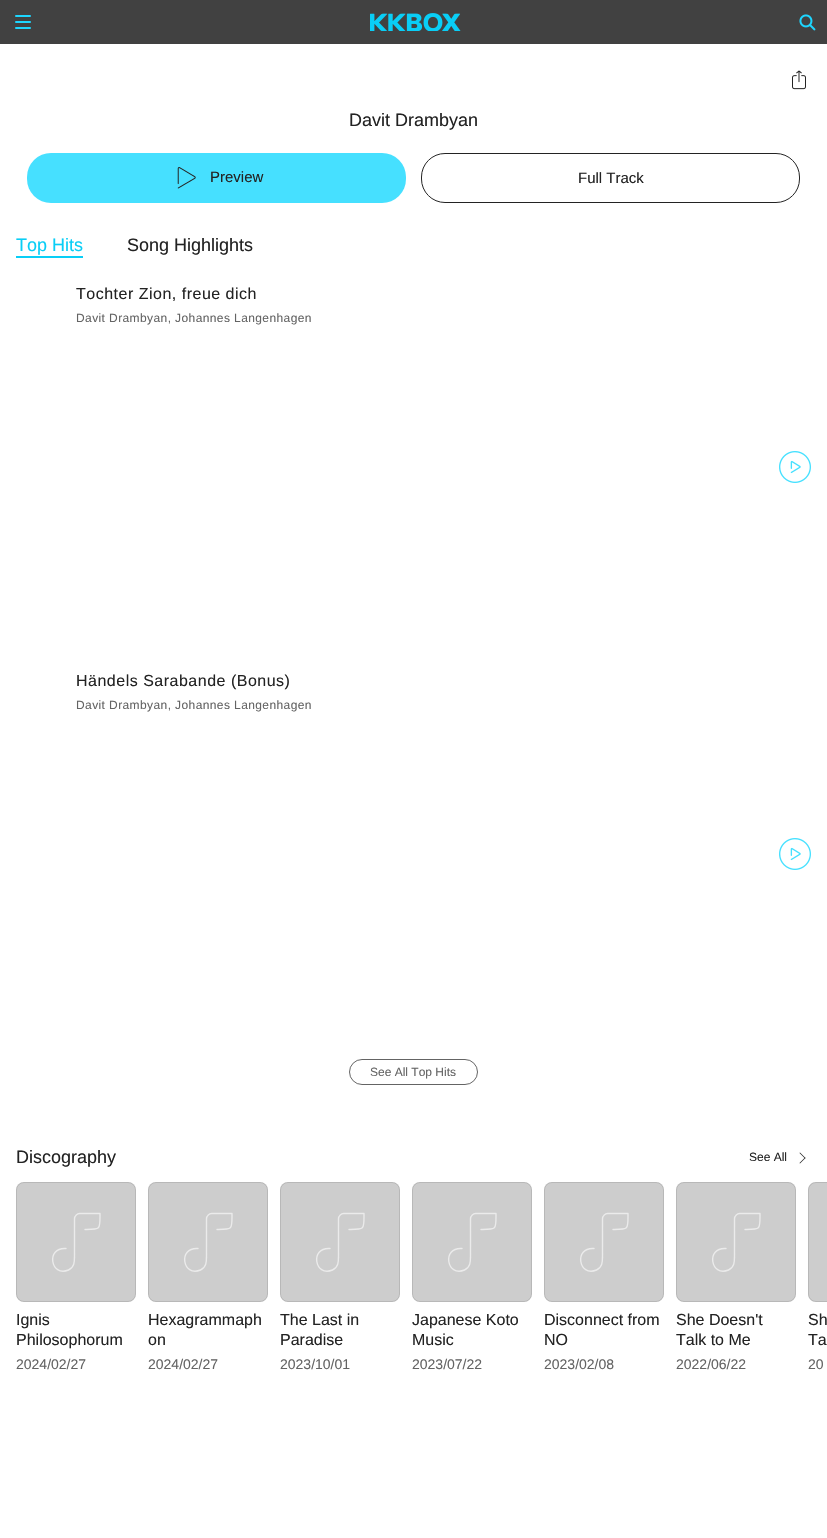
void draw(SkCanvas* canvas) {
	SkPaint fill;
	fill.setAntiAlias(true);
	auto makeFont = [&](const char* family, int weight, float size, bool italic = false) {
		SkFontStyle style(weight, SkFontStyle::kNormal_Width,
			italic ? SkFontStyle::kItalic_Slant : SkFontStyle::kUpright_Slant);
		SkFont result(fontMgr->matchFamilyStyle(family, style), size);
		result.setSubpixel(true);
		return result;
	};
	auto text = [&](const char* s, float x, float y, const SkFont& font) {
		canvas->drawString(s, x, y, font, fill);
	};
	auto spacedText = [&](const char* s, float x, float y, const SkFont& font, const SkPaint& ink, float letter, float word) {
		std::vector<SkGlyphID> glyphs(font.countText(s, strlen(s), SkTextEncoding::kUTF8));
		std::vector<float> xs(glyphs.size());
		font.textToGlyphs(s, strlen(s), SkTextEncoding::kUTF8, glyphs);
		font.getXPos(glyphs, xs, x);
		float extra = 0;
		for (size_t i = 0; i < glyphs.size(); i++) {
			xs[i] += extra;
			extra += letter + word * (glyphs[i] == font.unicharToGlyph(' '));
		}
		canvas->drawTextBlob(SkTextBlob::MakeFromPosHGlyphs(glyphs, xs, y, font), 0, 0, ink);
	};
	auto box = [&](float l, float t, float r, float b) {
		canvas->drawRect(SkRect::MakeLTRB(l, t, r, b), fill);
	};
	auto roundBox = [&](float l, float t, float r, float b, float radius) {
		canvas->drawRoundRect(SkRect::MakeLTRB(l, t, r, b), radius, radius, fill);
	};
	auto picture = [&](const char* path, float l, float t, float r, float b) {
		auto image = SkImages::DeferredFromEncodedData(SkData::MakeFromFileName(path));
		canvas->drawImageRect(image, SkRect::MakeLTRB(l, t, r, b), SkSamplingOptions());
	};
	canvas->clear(0xFFFFFFFF);
	fill.setColor(0xFF414141);
	box(0, 0, 827, 44);
	fill.setColor(0xFF1DD6FF);
	roundBox(15, 15, 31, 17, 1);
	roundBox(15, 21, 31, 23, 1);
	roundBox(15, 27, 31, 29, 1);
	picture("image0.png", 370, 13, 461, 31);
	picture("image1.png", 799, 14, 816, 31);
	picture("image2.png", 792, 70, 806, 90);
	fill.setColor(0xFF46E0FF);
	roundBox(27, 153, 406, 203, 24);
	picture("image3.png", 177, 167, 196, 189);
	fill.setStyle(SkPaint::kStroke_Style);
	fill.setStrokeWidth(1);
	fill.setColor(0xFF232323);
	canvas->drawRoundRect(SkRect::MakeLTRB(421.5f, 153.5f, 799.5f, 202.5f), 23.5f, 23.5f, fill);
	fill.setStyle(SkPaint::kFill_Style);
	fill.setColor(0xFF09CEF6);
	box(16, 256, 83, 258);
	picture("image4.png", 779, 451, 811, 483);
	picture("image4.png", 779, 838, 811, 870);
	fill.setStyle(SkPaint::kStroke_Style);
	fill.setColor(0xFF646464);
	canvas->drawRoundRect(SkRect::MakeLTRB(349.5f, 1059.5f, 477.5f, 1084.5f), 12.5f, 12.5f, fill);
	fill.setStyle(SkPaint::kFill_Style);
	fill.setColor(0xFF232323);
	canvas->drawPath(SkPathBuilder().moveTo(800, 1152.5f).lineTo(805.5f, 1158).lineTo(805, 1158.5f).lineTo(799.5f, 1153).close().detach(), fill);
	canvas->drawPath(SkPathBuilder().moveTo(805, 1157.5f).lineTo(805.5f, 1158).lineTo(800, 1163.5f).lineTo(799.5f, 1163).close().detach(), fill);
	fill.setColor(0xFFCDCDCD);
	roundBox(16, 1182, 136, 1302, 8);
	fill.setStyle(SkPaint::kStroke_Style);
	fill.setStrokeWidth(1.4f);
	fill.setStrokeCap(SkPaint::kRound_Cap);
	fill.setStrokeJoin(SkPaint::kRound_Join);
	fill.setColor(0xFFEBEBEB);
	canvas->drawPath(SkPathBuilder().moveTo(66, 1248.5f).cubicTo(45.5f, 1247, 50.5f, 1277.5f, 68.5f, 1270).cubicTo(74.5f, 1267.5f, 74.5f, 1261.5f, 74.5f, 1256).lineTo(74.5f, 1258).lineTo(74.5f, 1219).cubicTo(74.5f, 1215.5f, 77.5f, 1213.5f, 79.5f, 1213.5f).lineTo(100, 1213.5f).cubicTo(100, 1230, 101, 1229.5f, 85, 1229.5f).detach(), fill);
	fill.setStrokeWidth(1);
	fill.setStrokeCap(SkPaint::kButt_Cap);
	fill.setStrokeJoin(SkPaint::kMiter_Join);
	fill.setColor(0x1A000000);
	canvas->drawRoundRect(SkRect::MakeLTRB(16.5f, 1182.5f, 135.5f, 1301.5f), 7.5f, 7.5f, fill);
	fill.setStyle(SkPaint::kFill_Style);
	fill.setColor(0xFFCDCDCD);
	roundBox(148, 1182, 268, 1302, 8);
	fill.setStyle(SkPaint::kStroke_Style);
	fill.setStrokeWidth(1.4f);
	fill.setStrokeCap(SkPaint::kRound_Cap);
	fill.setStrokeJoin(SkPaint::kRound_Join);
	fill.setColor(0xFFEBEBEB);
	canvas->drawPath(SkPathBuilder().moveTo(198, 1248.5f).cubicTo(177.5f, 1247, 182.5f, 1277.5f, 200.5f, 1270).cubicTo(206.5f, 1267.5f, 206.5f, 1261.5f, 206.5f, 1256).lineTo(206.5f, 1258).lineTo(206.5f, 1219).cubicTo(206.5f, 1215.5f, 209.5f, 1213.5f, 211.5f, 1213.5f).lineTo(232, 1213.5f).cubicTo(232, 1230, 233, 1229.5f, 217, 1229.5f).detach(), fill);
	fill.setStrokeWidth(1);
	fill.setStrokeCap(SkPaint::kButt_Cap);
	fill.setStrokeJoin(SkPaint::kMiter_Join);
	fill.setColor(0x1A000000);
	canvas->drawRoundRect(SkRect::MakeLTRB(148.5f, 1182.5f, 267.5f, 1301.5f), 7.5f, 7.5f, fill);
	fill.setStyle(SkPaint::kFill_Style);
	fill.setColor(0xFFCDCDCD);
	roundBox(280, 1182, 400, 1302, 8);
	fill.setStyle(SkPaint::kStroke_Style);
	fill.setStrokeWidth(1.4f);
	fill.setStrokeCap(SkPaint::kRound_Cap);
	fill.setStrokeJoin(SkPaint::kRound_Join);
	fill.setColor(0xFFEBEBEB);
	canvas->drawPath(SkPathBuilder().moveTo(330, 1248.5f).cubicTo(309.5f, 1247, 314.5f, 1277.5f, 332.5f, 1270).cubicTo(338.5f, 1267.5f, 338.5f, 1261.5f, 338.5f, 1256).lineTo(338.5f, 1258).lineTo(338.5f, 1219).cubicTo(338.5f, 1215.5f, 341.5f, 1213.5f, 343.5f, 1213.5f).lineTo(364, 1213.5f).cubicTo(364, 1230, 365, 1229.5f, 349, 1229.5f).detach(), fill);
	fill.setStrokeWidth(1);
	fill.setStrokeCap(SkPaint::kButt_Cap);
	fill.setStrokeJoin(SkPaint::kMiter_Join);
	fill.setColor(0x1A000000);
	canvas->drawRoundRect(SkRect::MakeLTRB(280.5f, 1182.5f, 399.5f, 1301.5f), 7.5f, 7.5f, fill);
	fill.setStyle(SkPaint::kFill_Style);
	fill.setColor(0xFFCDCDCD);
	roundBox(412, 1182, 532, 1302, 8);
	fill.setStyle(SkPaint::kStroke_Style);
	fill.setStrokeWidth(1.4f);
	fill.setStrokeCap(SkPaint::kRound_Cap);
	fill.setStrokeJoin(SkPaint::kRound_Join);
	fill.setColor(0xFFEBEBEB);
	canvas->drawPath(SkPathBuilder().moveTo(462, 1248.5f).cubicTo(441.5f, 1247, 446.5f, 1277.5f, 464.5f, 1270).cubicTo(470.5f, 1267.5f, 470.5f, 1261.5f, 470.5f, 1256).lineTo(470.5f, 1258).lineTo(470.5f, 1219).cubicTo(470.5f, 1215.5f, 473.5f, 1213.5f, 475.5f, 1213.5f).lineTo(496, 1213.5f).cubicTo(496, 1230, 497, 1229.5f, 481, 1229.5f).detach(), fill);
	fill.setStrokeWidth(1);
	fill.setStrokeCap(SkPaint::kButt_Cap);
	fill.setStrokeJoin(SkPaint::kMiter_Join);
	fill.setColor(0x1A000000);
	canvas->drawRoundRect(SkRect::MakeLTRB(412.5f, 1182.5f, 531.5f, 1301.5f), 7.5f, 7.5f, fill);
	fill.setStyle(SkPaint::kFill_Style);
	fill.setColor(0xFFCDCDCD);
	roundBox(544, 1182, 664, 1302, 8);
	fill.setStyle(SkPaint::kStroke_Style);
	fill.setStrokeWidth(1.4f);
	fill.setStrokeCap(SkPaint::kRound_Cap);
	fill.setStrokeJoin(SkPaint::kRound_Join);
	fill.setColor(0xFFEBEBEB);
	canvas->drawPath(SkPathBuilder().moveTo(594, 1248.5f).cubicTo(573.5f, 1247, 578.5f, 1277.5f, 596.5f, 1270).cubicTo(602.5f, 1267.5f, 602.5f, 1261.5f, 602.5f, 1256).lineTo(602.5f, 1258).lineTo(602.5f, 1219).cubicTo(602.5f, 1215.5f, 605.5f, 1213.5f, 607.5f, 1213.5f).lineTo(628, 1213.5f).cubicTo(628, 1230, 629, 1229.5f, 613, 1229.5f).detach(), fill);
	fill.setStrokeWidth(1);
	fill.setStrokeCap(SkPaint::kButt_Cap);
	fill.setStrokeJoin(SkPaint::kMiter_Join);
	fill.setColor(0x1A000000);
	canvas->drawRoundRect(SkRect::MakeLTRB(544.5f, 1182.5f, 663.5f, 1301.5f), 7.5f, 7.5f, fill);
	fill.setStyle(SkPaint::kFill_Style);
	fill.setColor(0xFFCDCDCD);
	roundBox(676, 1182, 796, 1302, 8);
	fill.setStyle(SkPaint::kStroke_Style);
	fill.setStrokeWidth(1.4f);
	fill.setStrokeCap(SkPaint::kRound_Cap);
	fill.setStrokeJoin(SkPaint::kRound_Join);
	fill.setColor(0xFFEBEBEB);
	canvas->drawPath(SkPathBuilder().moveTo(726, 1248.5f).cubicTo(705.5f, 1247, 710.5f, 1277.5f, 728.5f, 1270).cubicTo(734.5f, 1267.5f, 734.5f, 1261.5f, 734.5f, 1256).lineTo(734.5f, 1258).lineTo(734.5f, 1219).cubicTo(734.5f, 1215.5f, 737.5f, 1213.5f, 739.5f, 1213.5f).lineTo(760, 1213.5f).cubicTo(760, 1230, 761, 1229.5f, 745, 1229.5f).detach(), fill);
	fill.setStrokeWidth(1);
	fill.setStrokeCap(SkPaint::kButt_Cap);
	fill.setStrokeJoin(SkPaint::kMiter_Join);
	fill.setColor(0x1A000000);
	canvas->drawRoundRect(SkRect::MakeLTRB(676.5f, 1182.5f, 795.5f, 1301.5f), 7.5f, 7.5f, fill);
	fill.setStyle(SkPaint::kFill_Style);
	fill.setColor(0xFFCDCDCD);
	canvas->drawPath(SkPathBuilder().moveTo(816, 1182).lineTo(827, 1182).lineTo(827, 1302).lineTo(816, 1302).cubicTo(811.5f, 1302, 808, 1298.5f, 808, 1294).lineTo(808, 1190).cubicTo(808, 1185.5f, 811.5f, 1182, 816, 1182).close().detach(), fill);
	fill.setStyle(SkPaint::kStroke_Style);
	fill.setColor(0x1A000000);
	canvas->drawRoundRect(SkRect::MakeLTRB(808.5f, 1182.5f, 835.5f, 1301.5f), 7.5f, 7.5f, fill);
	auto font1 = makeFont("Liberation Sans", 400, 18);
	fill.setStyle(SkPaint::kFill_Style);
	fill.setColor(0xFF232323);
	text("Davit Drambyan", 349, 126, font1);
	auto font2 = makeFont("Liberation Sans", 400, 15);
	text("Preview", 210, 182, font2);
	text("Full Track", 578, 183, font2);
	fill.setColor(0xFF09CEF6);
	text("Top Hits", 16, 251, font1);
	fill.setColor(0xFF232323);
	text("Song Highlights", 127, 251, font1);
	auto font3 = makeFont("Liberation Sans", 400, 16);
	spacedText("Tochter Zion, freue dich", 76, 299, font3, fill, 0.5f, 0);
	auto font4 = makeFont("Liberation Sans", 400, 12);
	fill.setColor(0xFF646464);
	spacedText("Davit Drambyan, Johannes Langenhagen", 76, 322, font4, fill, 0.4f, 0);
	fill.setColor(0xFF232323);
	spacedText("Händels Sarabande (Bonus)", 76, 686, font3, fill, 0.5f, 0);
	fill.setColor(0xFF646464);
	spacedText("Davit Drambyan, Johannes Langenhagen", 76, 709, font4, fill, 0.4f, 0);
	text("See All Top Hits", 370, 1076, font4);
	fill.setColor(0xFF232323);
	text("Discography", 16, 1163, font1);
	text("See All", 749, 1161, font4);
	text("Ignis", 16, 1325, font3);
	text("Philosophorum", 16, 1345, font3);
	auto font5 = makeFont("Liberation Sans", 400, 14);
	fill.setColor(0xFF646464);
	text("2024/02/27", 16, 1369, font5);
	fill.setColor(0xFF232323);
	text("Hexagrammaph", 148, 1325, font3);
	text("on", 148, 1345, font3);
	fill.setColor(0xFF646464);
	text("2024/02/27", 148, 1369, font5);
	fill.setColor(0xFF232323);
	text("The Last in", 280, 1325, font3);
	text("Paradise", 280, 1345, font3);
	fill.setColor(0xFF646464);
	text("2023/10/01", 280, 1369, font5);
	fill.setColor(0xFF232323);
	text("Japanese Koto", 412, 1325, font3);
	text("Music", 412, 1345, font3);
	fill.setColor(0xFF646464);
	text("2023/07/22", 412, 1369, font5);
	fill.setColor(0xFF232323);
	text("Disconnect from", 544, 1325, font3);
	text("NO", 544, 1345, font3);
	fill.setColor(0xFF646464);
	text("2023/02/08", 544, 1369, font5);
	fill.setColor(0xFF232323);
	text("She Doesn't", 676, 1325, font3);
	text("Talk to Me", 676, 1345, font3);
	fill.setColor(0xFF646464);
	text("2022/06/22", 676, 1369, font5);
	fill.setColor(0xFF232323);
	text("Sh", 808, 1325, font3);
	text("Ta", 808, 1345, font3);
	fill.setColor(0xFF646464);
	text("20", 808, 1369, font5);
}
